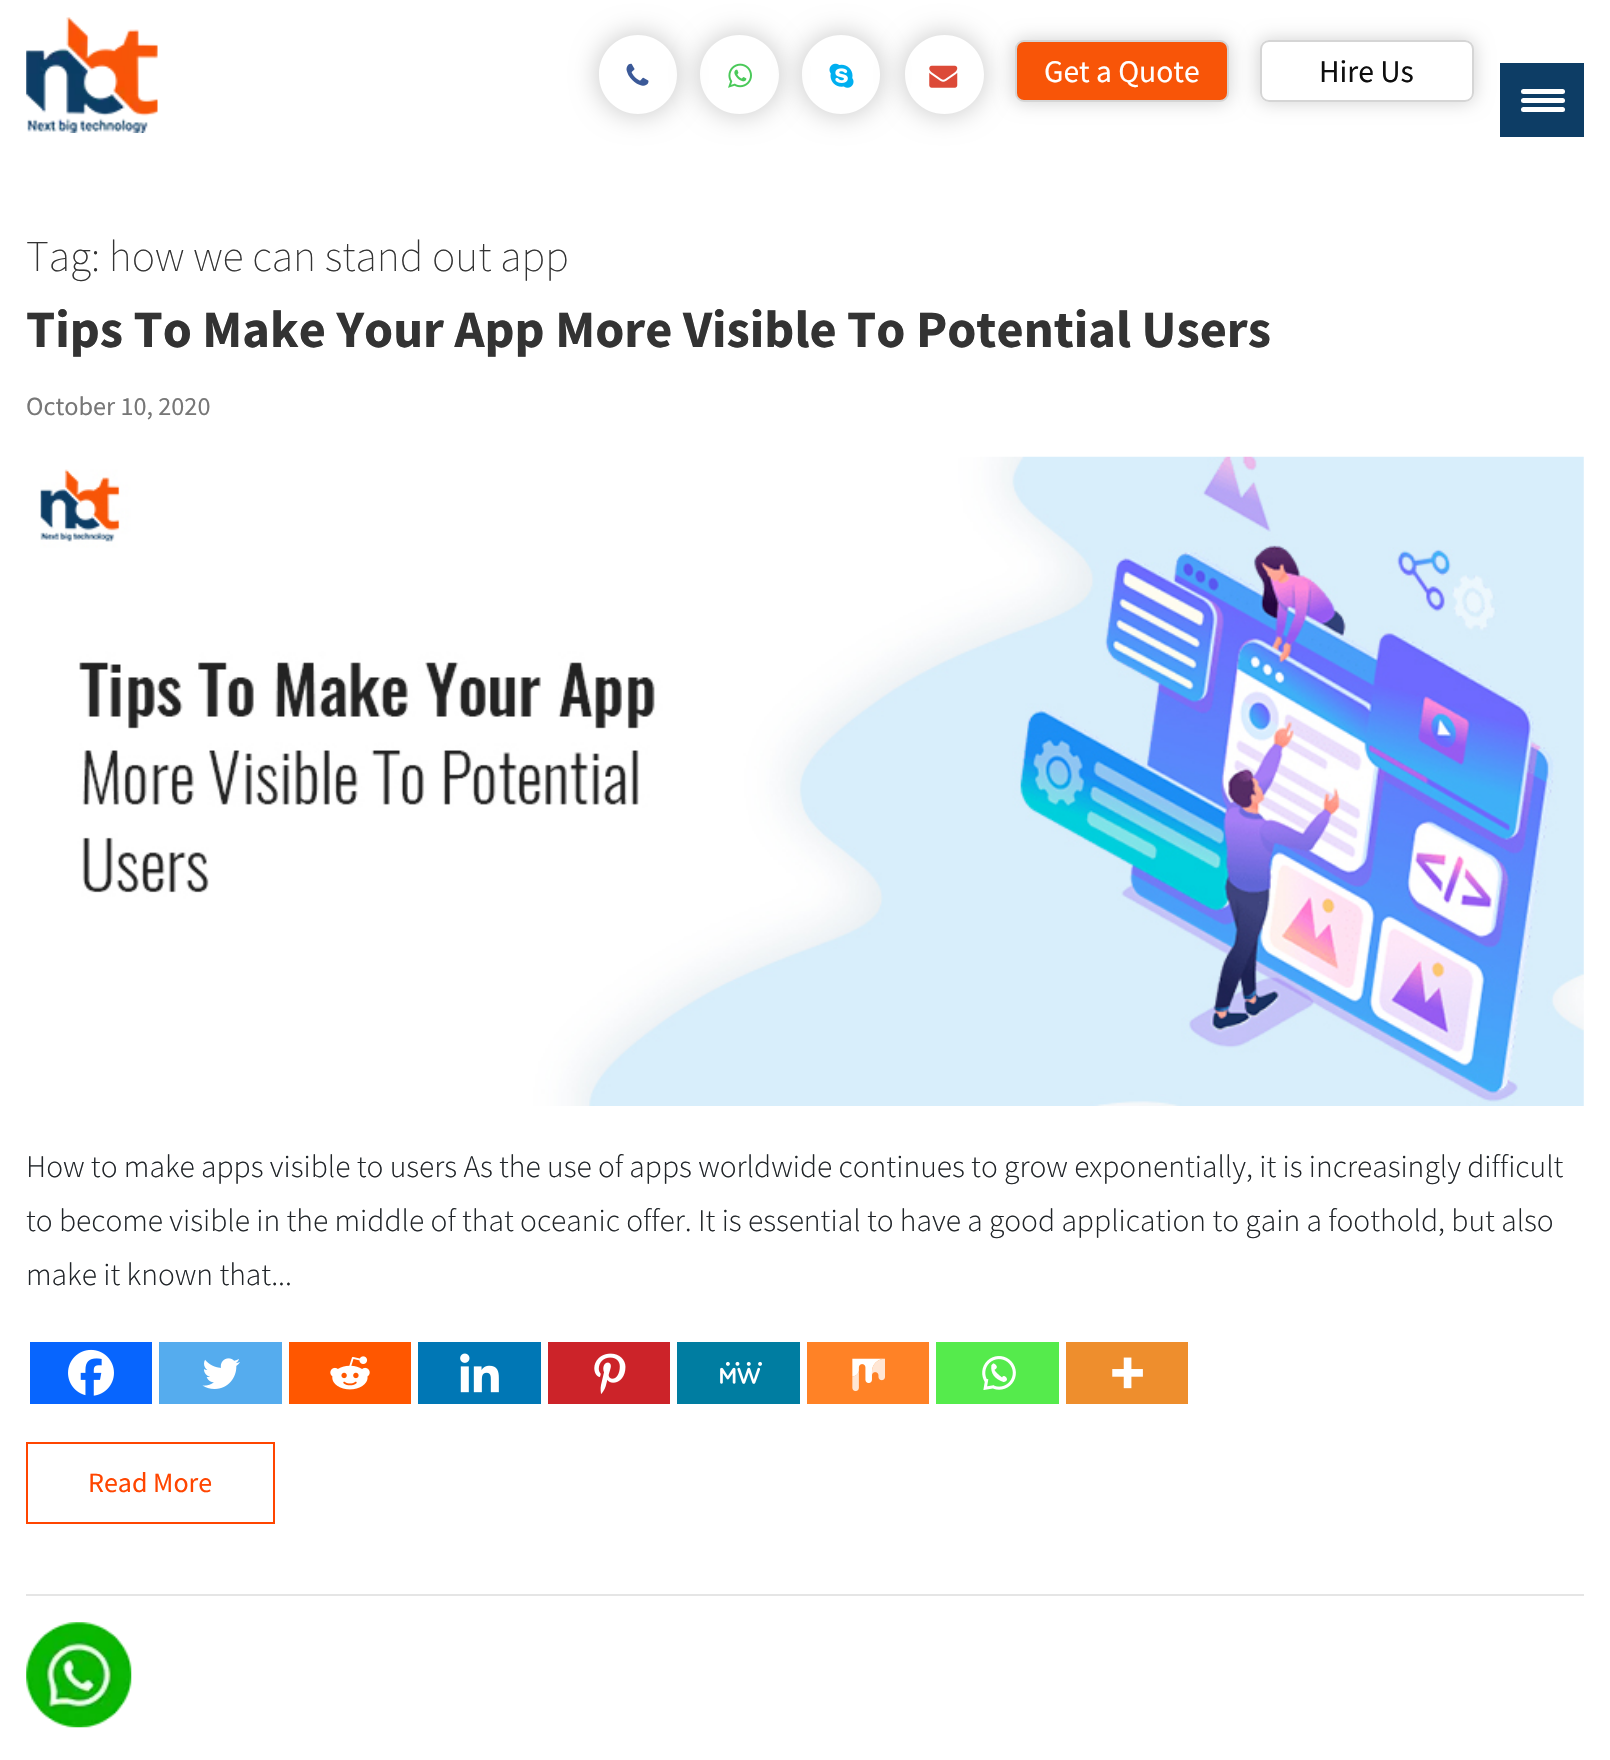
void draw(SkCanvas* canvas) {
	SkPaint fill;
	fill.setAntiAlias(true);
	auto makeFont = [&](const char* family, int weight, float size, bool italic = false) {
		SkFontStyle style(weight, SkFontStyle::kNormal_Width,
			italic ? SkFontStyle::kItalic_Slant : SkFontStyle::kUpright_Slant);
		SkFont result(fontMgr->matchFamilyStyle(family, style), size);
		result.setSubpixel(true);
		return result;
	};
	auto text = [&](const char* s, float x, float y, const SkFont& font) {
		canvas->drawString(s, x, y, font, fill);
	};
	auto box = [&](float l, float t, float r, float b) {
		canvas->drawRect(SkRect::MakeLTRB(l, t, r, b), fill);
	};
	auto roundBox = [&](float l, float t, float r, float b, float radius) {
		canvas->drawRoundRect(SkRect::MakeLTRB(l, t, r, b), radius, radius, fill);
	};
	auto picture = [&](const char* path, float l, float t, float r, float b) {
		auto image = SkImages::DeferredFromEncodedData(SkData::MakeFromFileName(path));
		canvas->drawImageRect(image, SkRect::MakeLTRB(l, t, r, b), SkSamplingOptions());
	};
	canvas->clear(0xFFFFFFFF);
	picture("image0.png", 26, 17, 158, 133);
	canvas->save();
	canvas->clipPath(SkPathBuilder(SkPathFillType::kEvenOdd).moveTo(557, 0).lineTo(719, 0).lineTo(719, 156).lineTo(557, 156).close().moveTo(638, 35).cubicTo(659.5f, 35, 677, 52.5f, 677, 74).lineTo(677, 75).cubicTo(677, 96.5f, 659.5f, 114, 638, 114).cubicTo(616.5f, 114, 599, 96.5f, 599, 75).lineTo(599, 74).cubicTo(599, 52.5f, 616.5f, 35, 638, 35).close().detach(), true);
	fill.setColor(0xFFCCCCCC);
	fill.setMaskFilter(SkMaskFilter::MakeBlur(kNormal_SkBlurStyle, 13));
	canvas->drawRoundRect(SkRect::MakeLTRB(597, 33, 679, 116), 41, 41, fill);
	fill.setMaskFilter(nullptr);
	canvas->restore();
	picture("image1.png", 626, 63, 649, 86);
	canvas->save();
	canvas->clipPath(SkPathBuilder(SkPathFillType::kEvenOdd).moveTo(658, 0).lineTo(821, 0).lineTo(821, 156).lineTo(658, 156).close().moveTo(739.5f, 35).cubicTo(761.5f, 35, 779, 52.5f, 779, 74.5f).cubicTo(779, 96.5f, 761.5f, 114, 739.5f, 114).cubicTo(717.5f, 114, 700, 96.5f, 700, 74.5f).cubicTo(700, 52.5f, 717.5f, 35, 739.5f, 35).close().detach(), true);
	fill.setMaskFilter(SkMaskFilter::MakeBlur(kNormal_SkBlurStyle, 13));
	canvas->drawRoundRect(SkRect::MakeLTRB(698, 33, 781, 116), 41.5f, 41.5f, fill);
	fill.setMaskFilter(nullptr);
	canvas->restore();
	picture("image2.png", 728, 63, 752, 88);
	canvas->save();
	canvas->clipPath(SkPathBuilder(SkPathFillType::kEvenOdd).moveTo(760, 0).lineTo(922, 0).lineTo(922, 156).lineTo(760, 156).close().moveTo(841, 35).cubicTo(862.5f, 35, 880, 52.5f, 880, 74).lineTo(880, 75).cubicTo(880, 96.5f, 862.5f, 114, 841, 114).cubicTo(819.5f, 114, 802, 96.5f, 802, 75).lineTo(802, 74).cubicTo(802, 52.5f, 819.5f, 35, 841, 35).close().detach(), true);
	fill.setMaskFilter(SkMaskFilter::MakeBlur(kNormal_SkBlurStyle, 13));
	canvas->drawRoundRect(SkRect::MakeLTRB(800, 33, 882, 116), 41, 41, fill);
	fill.setMaskFilter(nullptr);
	canvas->restore();
	picture("image3.png", 829, 63, 854, 88);
	canvas->save();
	canvas->clipPath(SkPathBuilder(SkPathFillType::kEvenOdd).moveTo(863, 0).lineTo(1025, 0).lineTo(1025, 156).lineTo(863, 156).close().moveTo(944.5f, 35).cubicTo(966.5f, 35, 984, 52.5f, 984, 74.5f).cubicTo(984, 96.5f, 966.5f, 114, 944.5f, 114).cubicTo(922.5f, 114, 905, 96.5f, 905, 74.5f).cubicTo(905, 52.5f, 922.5f, 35, 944.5f, 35).close().detach(), true);
	fill.setMaskFilter(SkMaskFilter::MakeBlur(kNormal_SkBlurStyle, 13));
	canvas->drawRoundRect(SkRect::MakeLTRB(903, 33, 985, 116), 41, 41, fill);
	fill.setMaskFilter(nullptr);
	canvas->restore();
	picture("image4.png", 929, 65, 958, 88);
	fill.setColor(0xFFD5D5D5);
	fill.setMaskFilter(SkMaskFilter::MakeBlur(kNormal_SkBlurStyle, 9));
	canvas->drawRoundRect(SkRect::MakeLTRB(1013, 39, 1230, 103), 11, 11, fill);
	fill.setMaskFilter(nullptr);
	fill.setColor(0xFFF85508);
	canvas->drawRoundRect(SkRect::MakeLTRB(1016, 41, 1228, 101), 8, 8, fill);
	fill.setStyle(SkPaint::kStroke_Style);
	fill.setStrokeWidth(2);
	fill.setColor(0xFFD5D5D5);
	canvas->drawRoundRect(SkRect::MakeLTRB(1016, 41, 1228, 101), 8, 8, fill);
	canvas->save();
	canvas->clipPath(SkPathBuilder(SkPathFillType::kEvenOdd).moveTo(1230, 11).lineTo(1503, 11).lineTo(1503, 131).lineTo(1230, 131).close().moveTo(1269, 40).lineTo(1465, 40).cubicTo(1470, 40, 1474, 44, 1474, 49).lineTo(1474, 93).cubicTo(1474, 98, 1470, 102, 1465, 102).lineTo(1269, 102).cubicTo(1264, 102, 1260, 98, 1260, 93).lineTo(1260, 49).cubicTo(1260, 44, 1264, 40, 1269, 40).close().detach(), true);
	fill.setStyle(SkPaint::kFill_Style);
	fill.setMaskFilter(SkMaskFilter::MakeBlur(kNormal_SkBlurStyle, 9));
	canvas->drawRoundRect(SkRect::MakeLTRB(1258, 39, 1475, 103), 11, 11, fill);
	fill.setMaskFilter(nullptr);
	canvas->restore();
	fill.setStyle(SkPaint::kStroke_Style);
	canvas->drawRoundRect(SkRect::MakeLTRB(1261, 41, 1473, 101), 8, 8, fill);
	fill.setStyle(SkPaint::kFill_Style);
	fill.setColor(0xFF0D3D65);
	box(1500, 63, 1584, 137);
	fill.setColor(0xFFFFFFFF);
	roundBox(1521, 98, 1565, 103, 2.5f);
	roundBox(1521, 89, 1565, 94, 2.5f);
	roundBox(1521, 107, 1565, 112, 2.5f);
	fill.setColor(0xFFE5E5E5);
	box(26, 1594, 1584, 1596);
	picture("image5.png", 40, 456, 1584, 1106);
	fill.setColor(0xFF0765FE);
	box(30, 1342, 152, 1404);
	picture("image6.png", 68, 1349, 114, 1396);
	fill.setColor(0xFF55ACEE);
	box(159, 1342, 282, 1404);
	picture("image7.png", 202, 1358, 240, 1389);
	fill.setColor(0xFFFF5700);
	box(289, 1342, 411, 1404);
	picture("image8.png", 330, 1356, 370, 1390);
	fill.setColor(0xFF0077B5);
	box(418, 1342, 541, 1404);
	picture("image9.png", 460, 1353, 499, 1393);
	fill.setColor(0xFFCC2329);
	box(548, 1342, 670, 1404);
	picture("image10.png", 594, 1353, 626, 1394);
	fill.setColor(0xFF007DA1);
	box(677, 1342, 800, 1404);
	picture("image11.png", 720, 1361, 762, 1384);
	fill.setColor(0xFFFF8226);
	box(807, 1342, 929, 1404);
	picture("image12.png", 852, 1358, 885, 1392);
	fill.setColor(0xFF55EB4C);
	box(936, 1342, 1059, 1404);
	picture("image13.png", 982, 1356, 1016, 1390);
	fill.setColor(0xFFEE8E2D);
	box(1066, 1342, 1188, 1404);
	picture("image14.png", 1112, 1357, 1143, 1389);
	fill.setStyle(SkPaint::kStroke_Style);
	fill.setColor(0xFFFF4500);
	canvas->drawRect(SkRect::MakeLTRB(27, 1443, 274, 1523), fill);
	picture("image15.png", 26, 1622, 132, 1728);
	auto font1 = makeFont("Source Sans Pro", 400, 31.5f);
	fill.setStyle(SkPaint::kFill_Style);
	fill.setColor(0xFFFFFFFF);
	text("Get a Quote", 1044, 82, font1);
	fill.setColor(0xFF0E0E0E);
	text("Hire Us", 1319, 82, font1);
	auto font2 = makeFont("Source Sans Pro", 200, 43.75f);
	fill.setColor(0xFF333333);
	text("Tag: how we can stand out app", 26, 271, font2);
	auto font3 = makeFont("Source Sans Pro", 700, 52.5f);
	text("Tips To Make Your App More Visible To Potential Users", 26, 347, font3);
	auto font4 = makeFont("Source Sans Pro", 400, 26.25f);
	fill.setColor(0xFF777777);
	text("October 10, 2020", 26, 415, font4);
	auto font5 = makeFont("Source Sans Pro", 300, 31.5f);
	fill.setColor(0xFF212529);
	text("How to make apps visible to users As the use of apps worldwide continues to grow exponentially, it is increasingly difficult", 26, 1177, font5);
	text("to become visible in the middle of that oceanic offer. It is essential to have a good application to gain a foothold, but also", 26, 1231, font5);
	text("make it known that...", 26, 1285, font5);
	auto font6 = makeFont("Source Sans Pro", 400, 28);
	fill.setColor(0xFFFF4500);
	text("Read More", 88, 1492, font6);
}
